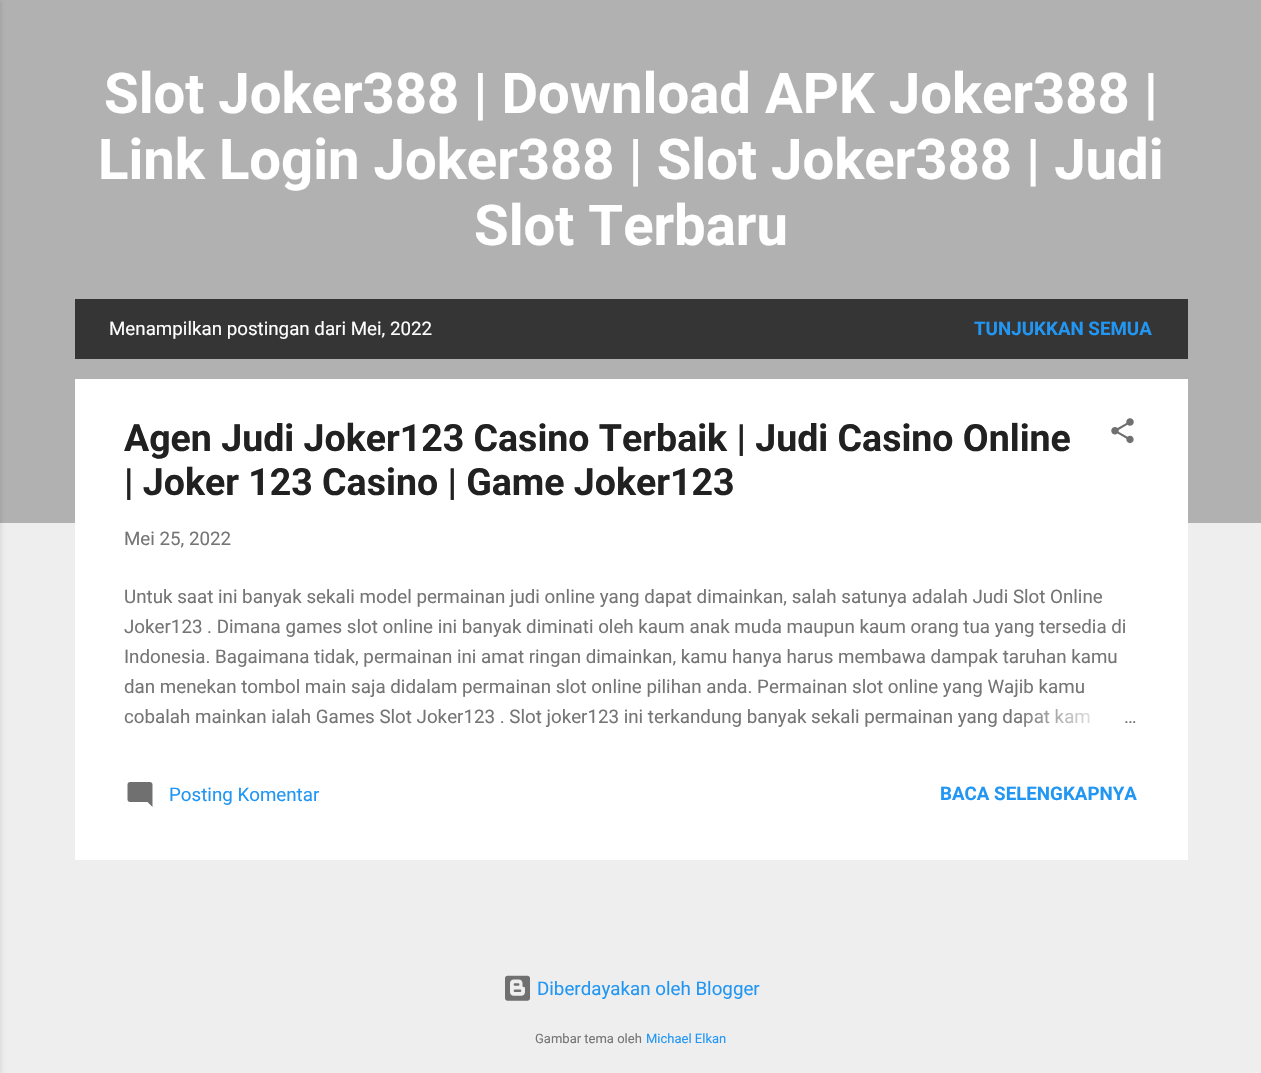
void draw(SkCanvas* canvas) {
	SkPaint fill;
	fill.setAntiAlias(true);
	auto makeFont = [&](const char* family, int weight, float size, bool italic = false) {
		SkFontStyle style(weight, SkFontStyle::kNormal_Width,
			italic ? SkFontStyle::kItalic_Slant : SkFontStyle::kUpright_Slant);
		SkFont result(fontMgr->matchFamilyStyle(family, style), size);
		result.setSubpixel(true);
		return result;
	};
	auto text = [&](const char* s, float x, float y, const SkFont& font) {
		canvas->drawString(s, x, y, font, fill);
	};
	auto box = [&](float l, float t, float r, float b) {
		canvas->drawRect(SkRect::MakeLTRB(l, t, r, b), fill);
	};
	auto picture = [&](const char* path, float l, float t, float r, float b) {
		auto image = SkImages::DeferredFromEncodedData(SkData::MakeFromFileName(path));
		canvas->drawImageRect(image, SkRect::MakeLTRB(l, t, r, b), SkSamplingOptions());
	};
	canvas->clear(0xFFEEEEEE);
	fill.setColor(0xFFB1B1B1);
	box(0, 0, 1261, 523);
	fill.setColor(0x1A000000);
	fill.setMaskFilter(SkMaskFilter::MakeBlur(kNormal_SkBlurStyle, 2));
	canvas->drawRect(SkRect::MakeLTRB(-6, 1, 1, 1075), fill);
	fill.setMaskFilter(nullptr);
	fill.setColor(0xFF353535);
	box(75, 299, 1188, 359);
	fill.setColor(0xFFFFFFFF);
	box(75, 379, 1188, 860);
	picture("image0.png", 1111, 418, 1134, 444);
	picture("image1.png", 127, 782, 153, 807);
	picture("image2.png", 505, 975, 530, 1001);
	auto font1 = makeFont("Roboto", 700, 56.25f);
	text("Slot Joker388 | Download APK Joker388 |", 104, 113, font1);
	text("Link Login Joker388 | Slot Joker388 | Judi", 98, 179, font1);
	text("Slot Terbaru", 474, 245, font1);
	auto font2 = makeFont("Roboto", 400, 18.75f);
	text("Menampilkan postingan dari Mei, 2022", 109, 335, font2);
	auto font3 = makeFont("Roboto", 700, 18.75f);
	fill.setColor(0xFF2196F3);
	text("TUNJUKKAN SEMUA", 974, 335, font3);
	auto font4 = makeFont("Roboto", 700, 37.5f);
	fill.setColor(0xFF212121);
	text("Agen Judi Joker123 Casino Terbaik | Judi Casino Online", 124, 451, font4);
	text("| Joker 123 Casino | Game Joker123", 124, 495, font4);
	fill.setColor(0xFF757575);
	text("Mei 25, 2022", 124, 545, font2);
	text("Untuk saat ini banyak sekali model permainan judi online yang dapat dimainkan, salah satunya adalah Judi Slot Online", 124, 603, font2);
	text("Joker123 . Dimana games slot online ini banyak diminati oleh kaum anak muda maupun kaum orang tua yang tersedia di", 124, 633, font2);
	text("Indonesia. Bagaimana tidak, permainan ini amat ringan dimainkan, kamu hanya harus membawa dampak taruhan kamu", 124, 663, font2);
	text("dan menekan tombol main saja didalam permainan slot online pilihan anda. Permainan slot online yang Wajib kamu", 124, 693, font2);
	text("cobalah mainkan ialah Games Slot Joker123 . Slot joker123 ini terkandung banyak sekali permainan yang dapat kam", 124, 723, font2);
	{
		const SkColor colors[] = {0xFFFFFFFF, 0xFFFFFFFF, 0x00FFFFFF};
		const float stops[] = {0, 0.2f, 1};
		const SkPoint ends[] = {{1138, 718}, {1018, 718}};
		fill.setShader(SkGradientShader::MakeLinear(ends, colors, stops, 3, SkTileMode::kClamp));
		fill.setAlpha(255);
	}
	box(1020, 708, 1090, 727);
	fill.setShader(nullptr);
	fill.setColor(0xFF757575);
	text("…", 1124, 723, font2);
	fill.setColor(0xFF2196F3);
	text("Posting Komentar", 169, 801, font2);
	text("BACA SELENGKAPNYA", 940, 800, font3);
	text("Diberdayakan oleh Blogger", 537, 995, font2);
	auto font5 = makeFont("Roboto", 400, 13);
	fill.setColor(0xFF757575);
	text("Gambar tema oleh", 535, 1043, font5);
	fill.setColor(0xFF2196F3);
	text("Michael Elkan", 646, 1043, font5);
}
